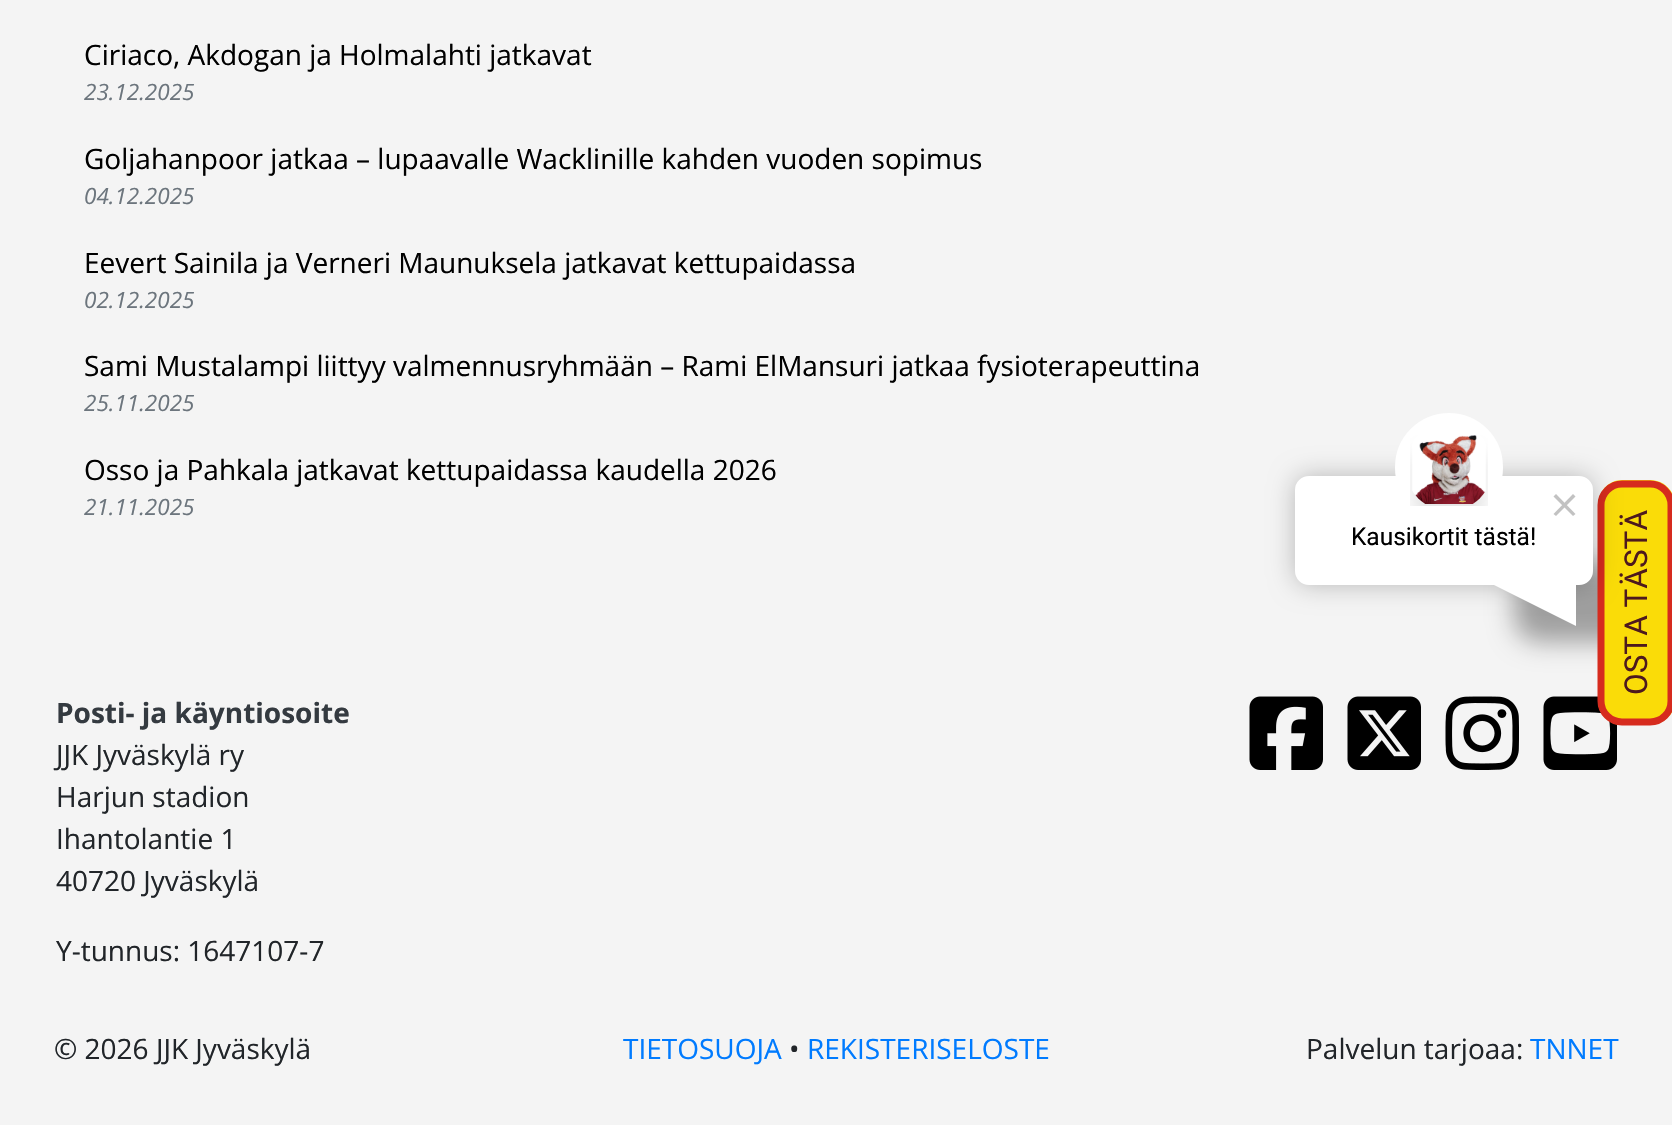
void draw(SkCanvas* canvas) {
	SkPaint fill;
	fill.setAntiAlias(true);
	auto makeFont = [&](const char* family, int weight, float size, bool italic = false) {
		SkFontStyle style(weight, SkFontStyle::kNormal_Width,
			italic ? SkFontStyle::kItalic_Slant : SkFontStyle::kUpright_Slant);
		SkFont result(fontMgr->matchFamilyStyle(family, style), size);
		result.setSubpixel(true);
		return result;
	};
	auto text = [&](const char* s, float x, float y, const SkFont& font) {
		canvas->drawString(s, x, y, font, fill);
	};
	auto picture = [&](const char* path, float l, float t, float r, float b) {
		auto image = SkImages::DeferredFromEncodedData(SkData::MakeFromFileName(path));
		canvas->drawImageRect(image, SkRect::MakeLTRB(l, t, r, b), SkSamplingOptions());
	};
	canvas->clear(0xFFF4F4F4);
	fill.setColor(0x59000000);
	fill.setMaskFilter(SkMaskFilter::MakeBlur(kNormal_SkBlurStyle, 13));
	canvas->drawRoundRect(SkRect::MakeLTRB(1514, 565, 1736, 642), 25, 25, fill);
	fill.setMaskFilter(nullptr);
	picture("image4.png", 1543, 696, 1617, 770);
	fill.setColor(0xFFFADC08);
	canvas->drawPath(SkPathBuilder().moveTo(1598, 701).lineTo(1598, 505).cubicTo(1598, 491, 1609, 480, 1622, 480).lineTo(1650, 480).cubicTo(1664, 480, 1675, 491, 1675, 505).lineTo(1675, 701).cubicTo(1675, 714, 1664, 725, 1650, 725).lineTo(1622, 725).cubicTo(1609, 725, 1598, 714, 1598, 701).close().detach(), fill);
	fill.setStyle(SkPaint::kStroke_Style);
	fill.setStrokeWidth(7);
	fill.setColor(0xFFD62B1E);
	canvas->drawPath(SkPathBuilder().moveTo(1601, 701).lineTo(1601, 505).cubicTo(1601, 493.5f, 1610.5f, 484, 1622, 484).lineTo(1650, 484).cubicTo(1662, 484, 1671, 493.5f, 1671, 505).lineTo(1671, 701).cubicTo(1671, 712.5f, 1662, 722, 1650, 722).lineTo(1622, 722).cubicTo(1610.5f, 722, 1601, 712.5f, 1601, 701).close().detach(), fill);
	fill.setStyle(SkPaint::kFill_Style);
	fill.setColor(0x40000000);
	fill.setMaskFilter(SkMaskFilter::MakeBlur(kNormal_SkBlurStyle, 13));
	canvas->drawRoundRect(SkRect::MakeLTRB(1295, 476, 1593, 585), 14, 14, fill);
	fill.setMaskFilter(nullptr);
	fill.setColor(0xFFFFFFFF);
	canvas->drawRoundRect(SkRect::MakeLTRB(1296, 477, 1592, 584), 13, 13, fill);
	fill.setStyle(SkPaint::kStroke_Style);
	fill.setStrokeWidth(2);
	canvas->drawRoundRect(SkRect::MakeLTRB(1296, 477, 1592, 584), 13, 13, fill);
	fill.setStyle(SkPaint::kFill_Style);
	canvas->drawRoundRect(SkRect::MakeLTRB(1400.5f, 418.5f, 1497.5f, 516.5f), 48.5f, 48.5f, fill);
	fill.setStyle(SkPaint::kStroke_Style);
	fill.setStrokeWidth(11);
	canvas->drawRoundRect(SkRect::MakeLTRB(1400.5f, 418.5f, 1497.5f, 516.5f), 48.5f, 48.5f, fill);
	picture("image0.png", 1410, 435, 1488, 506);
	fill.setStyle(SkPaint::kFill_Style);
	fill.setColor(0xFFC2C2C2);
	canvas->drawPath(SkPathBuilder().moveTo(1573, 494).lineTo(1575.5f, 496.5f).lineTo(1556, 516).lineTo(1553.5f, 514).close().detach(), fill);
	canvas->drawPath(SkPathBuilder().moveTo(1553.5f, 496.5f).lineTo(1556, 494).lineTo(1575.5f, 514).lineTo(1573, 516).close().detach(), fill);
	picture("image1.png", 1249, 696, 1323, 770);
	picture("image2.png", 1347, 696, 1421, 770);
	picture("image3.png", 1445, 696, 1519, 770);
	auto font1 = makeFont("Open Sans", 400, 28);
	fill.setColor(0xFF000000);
	text("Ciriaco, Akdogan ja Holmalahti jatkavat", 84, 65, font1);
	auto font2 = makeFont("Open Sans", 400, 22.5f, true);
	fill.setColor(0xFF6C757D);
	text("23.12.2025", 84, 100, font2);
	fill.setColor(0xFF000000);
	text("Goljahanpoor jatkaa – lupaavalle Wacklinille kahden vuoden sopimus", 84, 169, font1);
	fill.setColor(0xFF6C757D);
	text("04.12.2025", 84, 204, font2);
	fill.setColor(0xFF000000);
	text("Eevert Sainila ja Verneri Maunuksela jatkavat kettupaidassa", 84, 273, font1);
	fill.setColor(0xFF6C757D);
	text("02.12.2025", 84, 308, font2);
	fill.setColor(0xFF000000);
	text("Sami Mustalampi liittyy valmennusryhmään – Rami ElMansuri jatkaa fysioterapeuttina", 84, 376, font1);
	fill.setColor(0xFF6C757D);
	text("25.11.2025", 84, 411, font2);
	fill.setColor(0xFF000000);
	text("Osso ja Pahkala jatkavat kettupaidassa kaudella 2026", 84, 480, font1);
	fill.setColor(0xFF6C757D);
	text("21.11.2025", 84, 515, font2);
	auto font3 = makeFont("Roboto", 400, 24.5f);
	fill.setColor(0xFF000000);
	text("Kausikortit tästä!", 1351, 545, font3);
	fill.setColor(0xFFFFFFFF);
	canvas->drawPath(SkPathBuilder().moveTo(1488, 582).lineTo(1576, 538).lineTo(1576, 626).close().detach(), fill);
	auto font4 = makeFont("Roboto", 400, 31.5f);
	fill.setColor(0xFF4D191E);
	canvas->save();
	canvas->rotate(-90, 1647, 695);
	text("OSTA TÄSTÄ", 1647, 695, font4);
	canvas->restore();
	auto font5 = makeFont("Open Sans", 700, 28);
	fill.setColor(0xFF343A40);
	text("Posti- ja käyntiosoite", 56, 723, font5);
	fill.setColor(0xFF212529);
	text("JJK Jyväskylä ry", 56, 765, font1);
	text("Harjun stadion", 56, 807, font1);
	text("Ihantolantie 1", 56, 849, font1);
	text("40720 Jyväskylä", 56, 891, font1);
	text("Y-tunnus: 1647107-7", 56, 961, font1);
	text("© 2026 JJK Jyväskylä", 54, 1059, font1);
	fill.setColor(0xFF007BFF);
	text("TIETOSUOJA", 623, 1059, font1);
	fill.setColor(0xFF212529);
	text("•", 789, 1059, font1);
	fill.setColor(0xFF007BFF);
	text("REKISTERISELOSTE", 807, 1059, font1);
	fill.setColor(0xFF212529);
	text("Palvelun tarjoaa:", 1306, 1059, font1);
	fill.setColor(0xFF007BFF);
	text("TNNET", 1530, 1059, font1);
}
